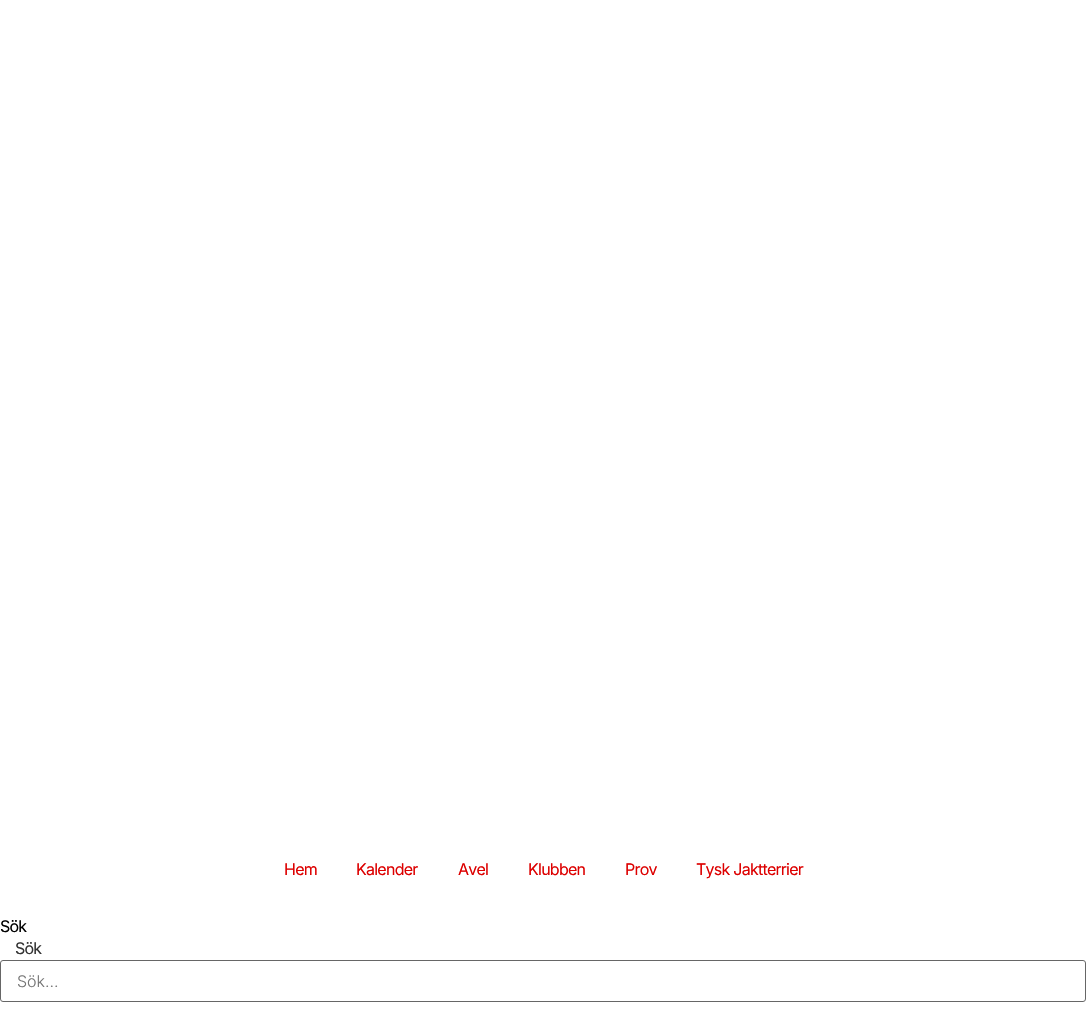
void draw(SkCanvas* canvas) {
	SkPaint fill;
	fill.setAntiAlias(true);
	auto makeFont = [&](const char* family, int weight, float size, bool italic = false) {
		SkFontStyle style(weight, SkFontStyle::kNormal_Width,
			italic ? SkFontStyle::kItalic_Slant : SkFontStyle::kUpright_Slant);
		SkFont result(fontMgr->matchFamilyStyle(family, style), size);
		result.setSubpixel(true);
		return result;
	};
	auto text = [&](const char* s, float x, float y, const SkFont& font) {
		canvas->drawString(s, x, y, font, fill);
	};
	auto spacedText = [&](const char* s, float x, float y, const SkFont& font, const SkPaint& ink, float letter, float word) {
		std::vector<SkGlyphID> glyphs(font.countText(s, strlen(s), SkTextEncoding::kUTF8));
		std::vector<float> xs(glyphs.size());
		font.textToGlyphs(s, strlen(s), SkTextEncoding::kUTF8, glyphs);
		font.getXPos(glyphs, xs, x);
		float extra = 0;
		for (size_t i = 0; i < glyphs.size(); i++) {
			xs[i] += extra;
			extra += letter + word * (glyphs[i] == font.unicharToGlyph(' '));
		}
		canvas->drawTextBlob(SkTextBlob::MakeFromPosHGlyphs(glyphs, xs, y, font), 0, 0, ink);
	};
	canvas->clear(0xFFFFFFFF);
	fill.setStyle(SkPaint::kStroke_Style);
	fill.setStrokeWidth(1);
	fill.setColor(0xFF666666);
	canvas->drawRoundRect(SkRect::MakeLTRB(0.5f, 960.5f, 1085.5f, 1001.5f), 2.5f, 2.5f, fill);
	auto font1 = makeFont("Inter", 400, 16);
	fill.setStyle(SkPaint::kFill_Style);
	fill.setColor(0xFFDD0000);
	spacedText("Hem", 284, 875, font1, fill, -0.75f, 0);
	spacedText("Kalender", 356, 875, font1, fill, -0.75f, 0);
	spacedText("Avel", 458, 875, font1, fill, -0.75f, 0);
	spacedText("Klubben", 528, 875, font1, fill, -0.75f, 0);
	spacedText("Prov", 625, 875, font1, fill, -0.75f, 0);
	spacedText("Tysk Jaktterrier", 696, 875, font1, fill, -0.75f, 0);
	fill.setColor(0xFF000000);
	spacedText("Sök", 0, 932, font1, fill, -0.75f, 0);
	fill.setColor(0xFF333333);
	spacedText("Sök", 15, 954, font1, fill, -0.75f, 0);
	auto font2 = makeFont("Inter", 300, 16);
	fill.setColor(0xFF757575);
	text("Sök...", 17, 987, font2);
}
